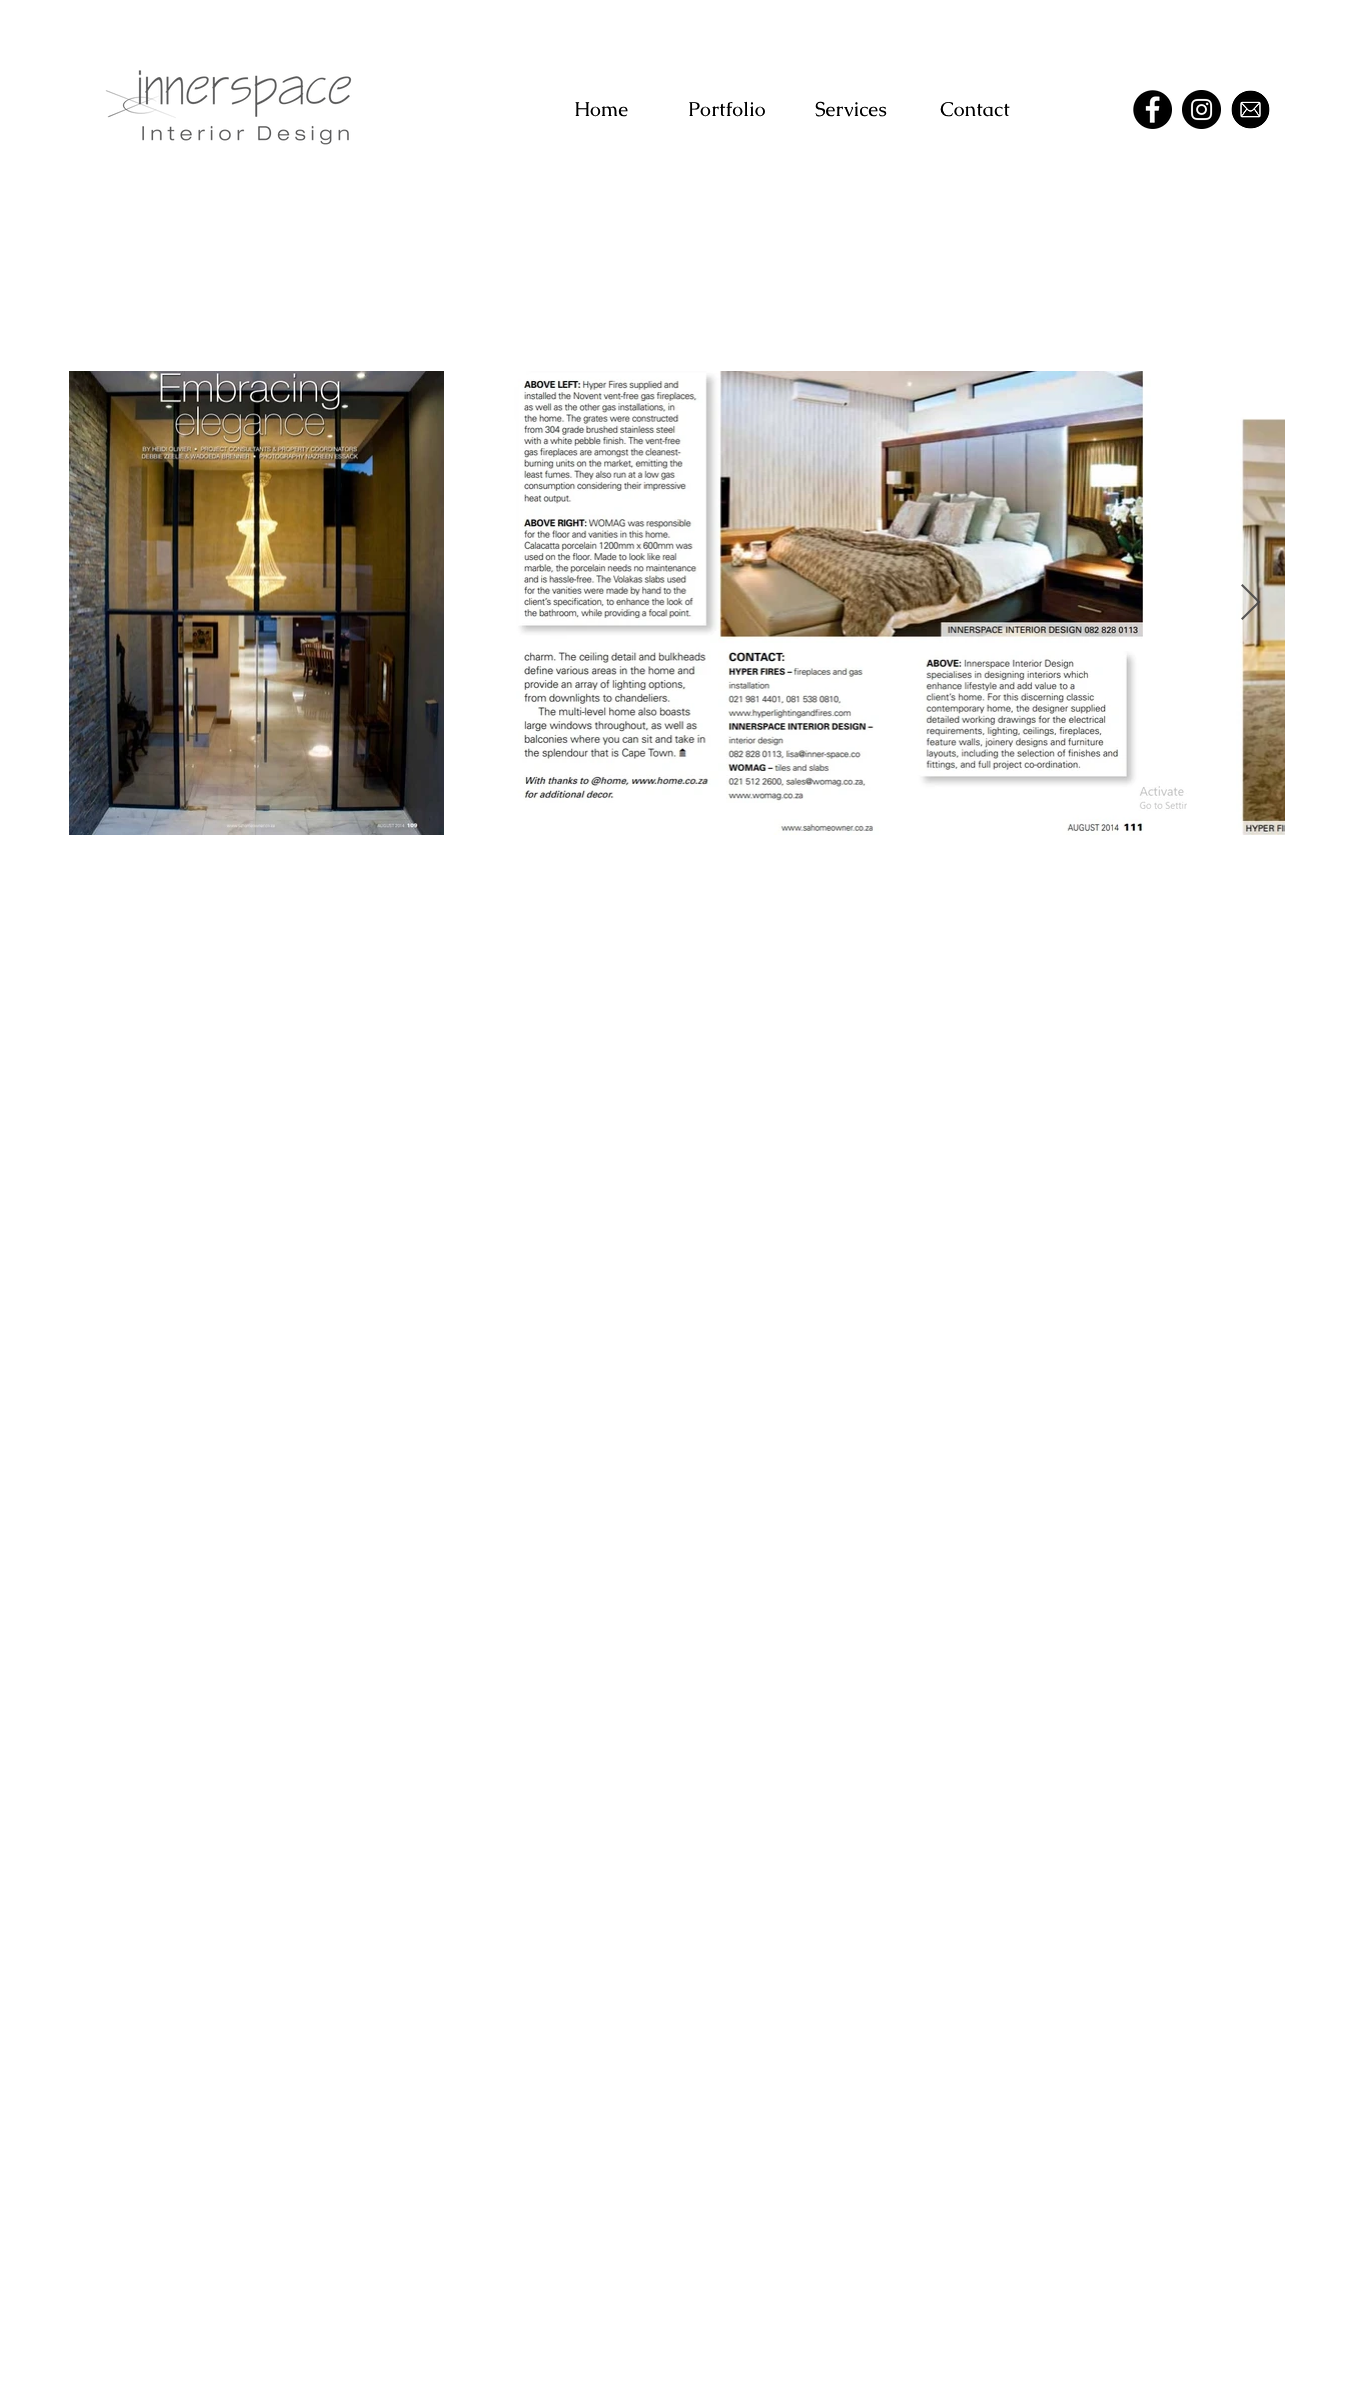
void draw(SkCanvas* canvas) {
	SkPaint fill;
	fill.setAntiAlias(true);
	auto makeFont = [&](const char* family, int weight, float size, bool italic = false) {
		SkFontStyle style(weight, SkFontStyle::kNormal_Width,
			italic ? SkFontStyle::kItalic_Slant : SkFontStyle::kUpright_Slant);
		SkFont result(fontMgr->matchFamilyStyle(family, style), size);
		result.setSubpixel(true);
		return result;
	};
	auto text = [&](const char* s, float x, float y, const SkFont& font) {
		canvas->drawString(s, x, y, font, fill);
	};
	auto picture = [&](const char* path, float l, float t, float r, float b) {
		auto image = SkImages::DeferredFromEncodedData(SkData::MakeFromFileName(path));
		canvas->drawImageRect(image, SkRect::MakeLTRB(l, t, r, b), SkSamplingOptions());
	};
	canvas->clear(0xFFFFFFFF);
	picture("image0.png", 105, 70, 352, 145);
	picture("image1.png", 1133, 90, 1172, 129);
	picture("image2.png", 1182, 90, 1221, 129);
	picture("image3.png", 1231, 90, 1270, 129);
	picture("image4.png", 69, 371, 444, 835);
	picture("image5.png", 454, 371, 1187, 835);
	picture("image6.png", 1197, 371, 1285, 835);
	fill.setColor(0xE6474646);
	canvas->drawPath(SkPathBuilder().moveTo(1241, 585.5f).lineTo(1242.5f, 584).lineTo(1260.5f, 602).lineTo(1242.5f, 620).lineTo(1241, 618.5f).lineTo(1257.5f, 602).close().detach(), fill);
	auto font1 = makeFont("Caudex", 400, 20);
	fill.setColor(0xFF000000);
	text("Home", 574, 116, font1);
	text("Portfolio", 688, 116, font1);
	text("Services", 815, 116, font1);
	text("Contact", 940, 116, font1);
}
